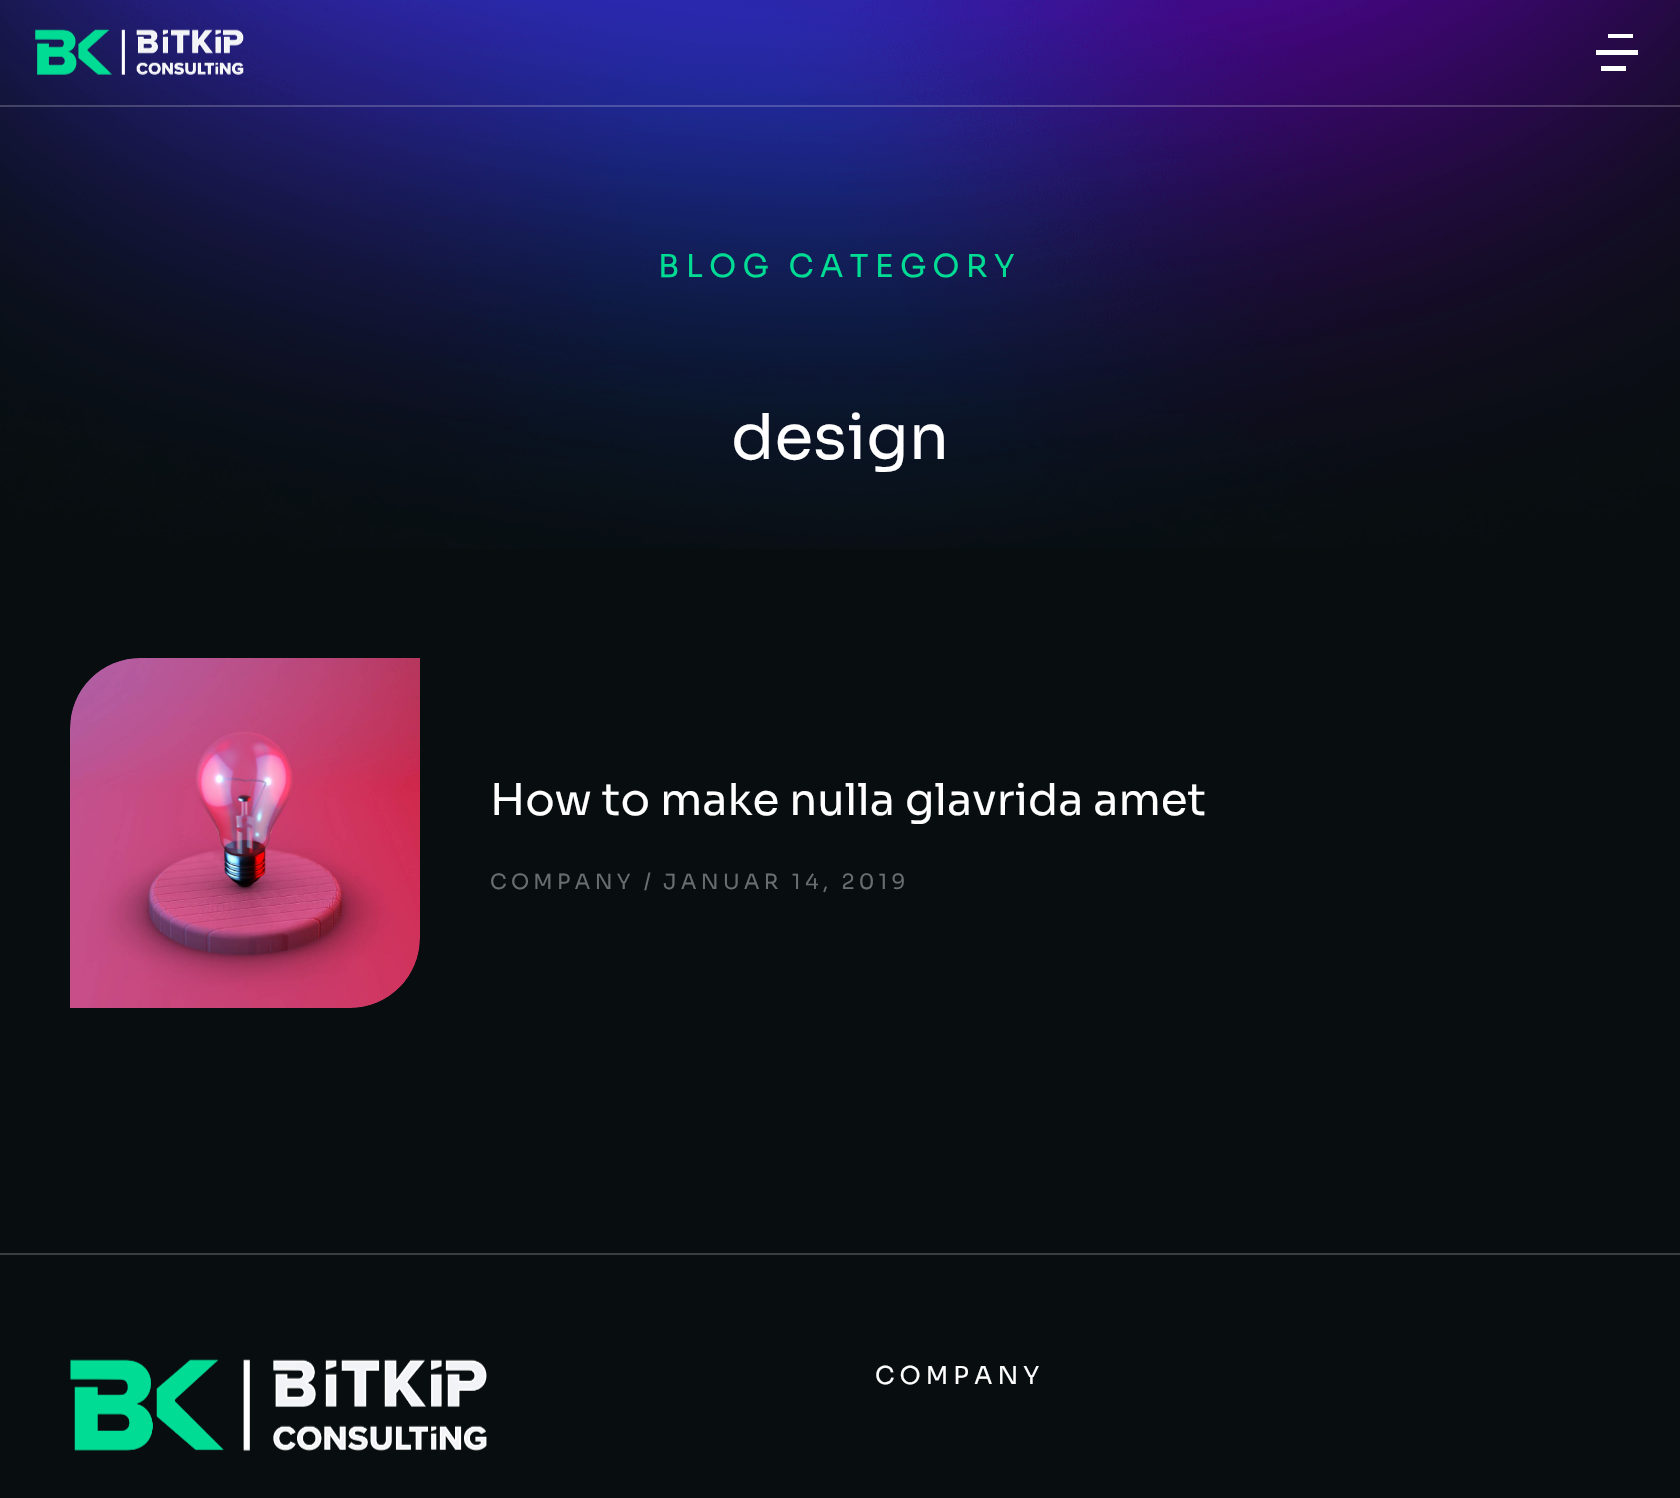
void draw(SkCanvas* canvas) {
	SkPaint fill;
	fill.setAntiAlias(true);
	auto makeFont = [&](const char* family, int weight, float size, bool italic = false) {
		SkFontStyle style(weight, SkFontStyle::kNormal_Width,
			italic ? SkFontStyle::kItalic_Slant : SkFontStyle::kUpright_Slant);
		SkFont result(fontMgr->matchFamilyStyle(family, style), size);
		result.setSubpixel(true);
		return result;
	};
	auto text = [&](const char* s, float x, float y, const SkFont& font) {
		canvas->drawString(s, x, y, font, fill);
	};
	auto spacedText = [&](const char* s, float x, float y, const SkFont& font, const SkPaint& ink, float letter, float word) {
		std::vector<SkGlyphID> glyphs(font.countText(s, strlen(s), SkTextEncoding::kUTF8));
		std::vector<float> xs(glyphs.size());
		font.textToGlyphs(s, strlen(s), SkTextEncoding::kUTF8, glyphs);
		font.getXPos(glyphs, xs, x);
		float extra = 0;
		for (size_t i = 0; i < glyphs.size(); i++) {
			xs[i] += extra;
			extra += letter + word * (glyphs[i] == font.unicharToGlyph(' '));
		}
		canvas->drawTextBlob(SkTextBlob::MakeFromPosHGlyphs(glyphs, xs, y, font), 0, 0, ink);
	};
	auto box = [&](float l, float t, float r, float b) {
		canvas->drawRect(SkRect::MakeLTRB(l, t, r, b), fill);
	};
	auto picture = [&](const char* path, float l, float t, float r, float b) {
		auto image = SkImages::DeferredFromEncodedData(SkData::MakeFromFileName(path));
		canvas->drawImageRect(image, SkRect::MakeLTRB(l, t, r, b), SkSamplingOptions());
	};
	canvas->clear(0xFF080E10);
	picture("image0.png", 0, 0, 1680, 549);
	fill.setColor(0x33FFFFFF);
	box(0, 105, 1680, 107);
	picture("image1.png", 35, 29, 244, 75);
	fill.setColor(0xFFFFFFFF);
	canvas->drawPath(SkPathBuilder().moveTo(1626, 66).lineTo(1626, 71).lineTo(1601, 71).lineTo(1601, 66).close().moveTo(1638, 50).lineTo(1638, 55).lineTo(1596, 55).lineTo(1596, 50).close().moveTo(1633, 34).lineTo(1633, 38).lineTo(1608, 38).lineTo(1608, 34).close().detach(), fill);
	fill.setColor(0xFF0D1214);
	canvas->drawPath(SkPathBuilder().moveTo(140, 658).lineTo(420, 658).lineTo(420, 938).cubicTo(420, 976.5f, 388.5f, 1008, 350, 1008).lineTo(70, 1008).lineTo(70, 728).cubicTo(70, 689.5f, 101.5f, 658, 140, 658).close().detach(), fill);
	picture("image2.png", 70, 658, 420, 1008);
	fill.setColor(0xFF393E40);
	box(0, 1253, 1680, 1255);
	picture("image3.png", 70, 1359, 487, 1451);
	auto font1 = makeFont("Sora", 400, 31.5f);
	fill.setColor(0xFF00DC93);
	spacedText("BLOG CATEGORY", 658, 277, font1, fill, 6.25f, 0);
	auto font2 = makeFont("Sora", 400, 63);
	fill.setColor(0xFFFFFFFF);
	text("design", 731, 459, font2);
	auto font3 = makeFont("Sora", 400, 43.75f);
	text("How to make nulla glavrida amet", 490, 815, font3);
	auto font4 = makeFont("Sora", 400, 21);
	fill.setColor(0xFF686D6E);
	spacedText("COMPANY /", 490, 889, font4, fill, 4.25f, 0);
	spacedText("JANUAR 14, 2019", 663, 889, font4, fill, 4.25f, 0);
	auto font5 = makeFont("Sora", 400, 24.5f);
	fill.setColor(0xFFFFFFFF);
	spacedText("COMPANY", 875, 1384, font5, fill, 5, 0);
}
